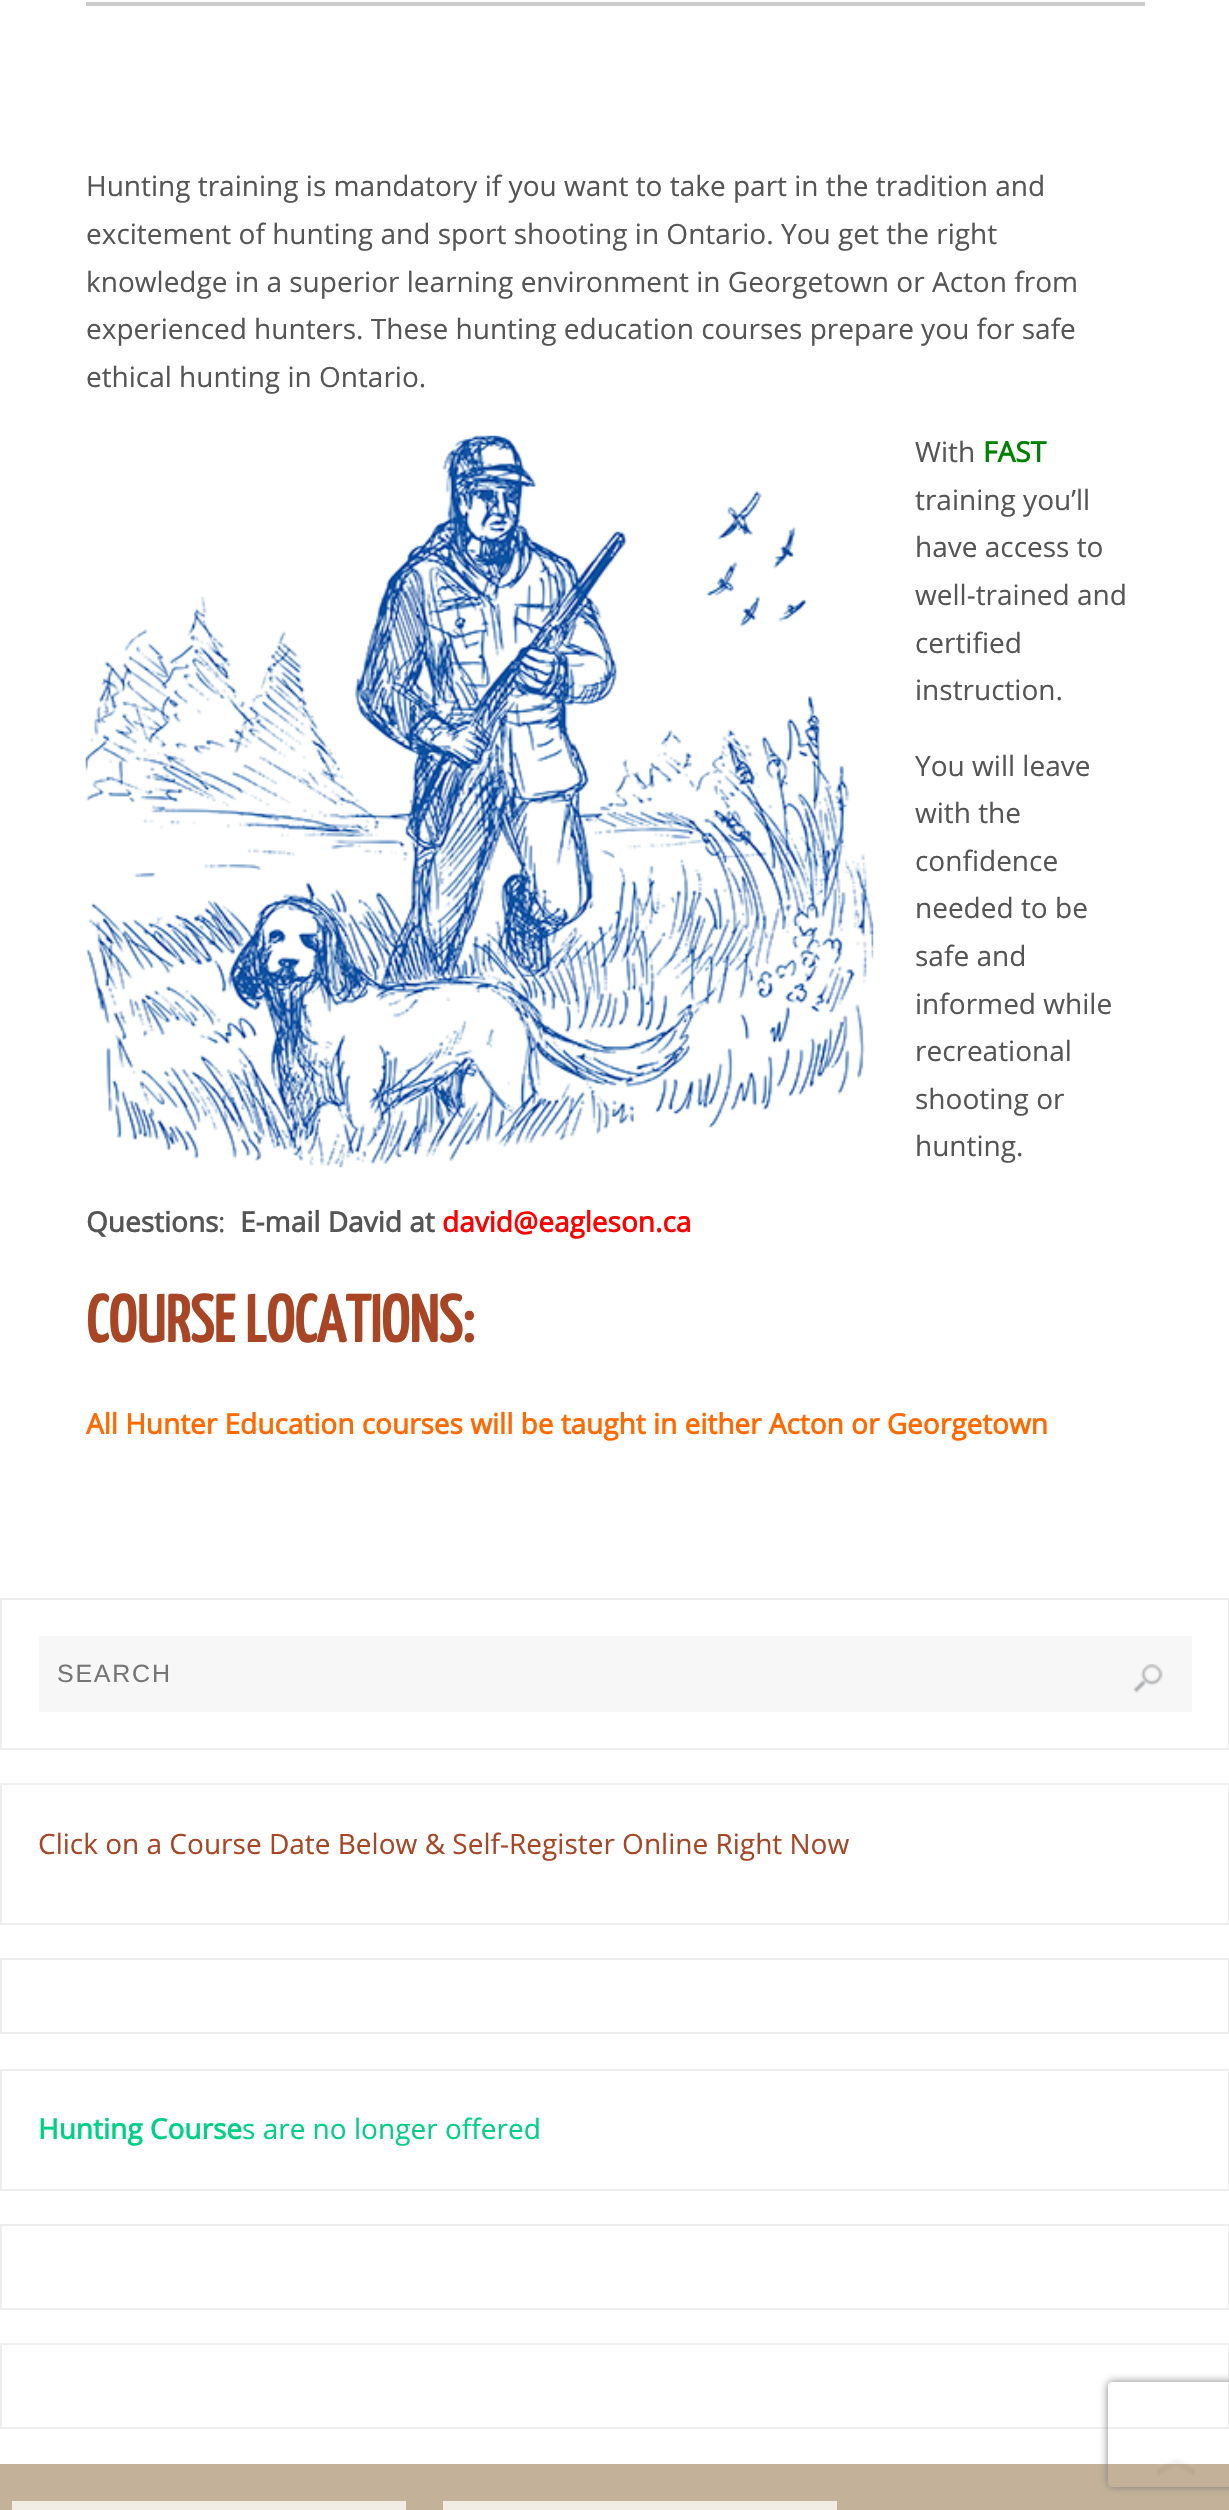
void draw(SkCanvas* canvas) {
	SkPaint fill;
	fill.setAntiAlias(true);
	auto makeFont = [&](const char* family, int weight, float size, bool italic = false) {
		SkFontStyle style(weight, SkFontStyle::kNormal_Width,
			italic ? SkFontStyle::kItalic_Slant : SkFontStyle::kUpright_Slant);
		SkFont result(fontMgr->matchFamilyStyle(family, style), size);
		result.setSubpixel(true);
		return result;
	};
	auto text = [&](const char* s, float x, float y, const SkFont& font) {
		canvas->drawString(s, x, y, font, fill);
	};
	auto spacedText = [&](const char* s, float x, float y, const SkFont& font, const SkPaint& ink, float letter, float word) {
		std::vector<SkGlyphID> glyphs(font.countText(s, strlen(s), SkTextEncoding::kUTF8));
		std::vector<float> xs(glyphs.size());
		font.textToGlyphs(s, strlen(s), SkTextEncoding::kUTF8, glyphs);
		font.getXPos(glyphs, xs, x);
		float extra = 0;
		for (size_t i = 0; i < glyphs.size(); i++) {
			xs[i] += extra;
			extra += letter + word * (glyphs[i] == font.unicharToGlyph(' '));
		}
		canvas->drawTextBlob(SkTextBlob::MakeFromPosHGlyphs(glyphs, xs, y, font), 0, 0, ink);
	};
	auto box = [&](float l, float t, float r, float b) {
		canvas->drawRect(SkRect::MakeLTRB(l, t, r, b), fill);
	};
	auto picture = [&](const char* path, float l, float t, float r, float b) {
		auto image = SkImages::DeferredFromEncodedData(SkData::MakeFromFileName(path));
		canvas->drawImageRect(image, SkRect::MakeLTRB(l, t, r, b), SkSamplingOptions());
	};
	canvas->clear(0xFFFFFFFF);
	fill.setColor(0xFFCCCCCC);
	box(86, 2, 1145, 6);
	picture("image0.png", 85, 435, 874, 1168);
	fill.setStyle(SkPaint::kStroke_Style);
	fill.setStrokeWidth(2);
	fill.setColor(0xFFEEEEEE);
	canvas->drawRect(SkRect::MakeLTRB(1, 1599, 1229, 1749), fill);
	fill.setStyle(SkPaint::kFill_Style);
	fill.setColor(0xFFF7F7F7);
	box(39, 1636, 1192, 1712);
	picture("image1.png", 1133, 1664, 1163, 1693);
	fill.setStyle(SkPaint::kStroke_Style);
	fill.setColor(0xFFEEEEEE);
	canvas->drawRect(SkRect::MakeLTRB(1, 1784, 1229, 1924), fill);
	canvas->drawRect(SkRect::MakeLTRB(1, 1959, 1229, 2033), fill);
	canvas->drawRect(SkRect::MakeLTRB(1, 2070, 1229, 2190), fill);
	canvas->drawRect(SkRect::MakeLTRB(1, 2225, 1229, 2309), fill);
	canvas->drawRect(SkRect::MakeLTRB(1, 2344, 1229, 2428), fill);
	fill.setStyle(SkPaint::kFill_Style);
	fill.setColor(0xFFC3B299);
	box(0, 2464, 1229, 2510);
	fill.setColor(0xFFF1ECE4);
	box(12, 2501, 406, 2510);
	box(443, 2501, 837, 2510);
	canvas->save();
	canvas->clipPath(SkPathBuilder(SkPathFillType::kEvenOdd).moveTo(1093, 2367).lineTo(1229, 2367).lineTo(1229, 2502).lineTo(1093, 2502).close().moveTo(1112, 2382).lineTo(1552, 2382).cubicTo(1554, 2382, 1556, 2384, 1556, 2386).lineTo(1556, 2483).cubicTo(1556, 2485, 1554, 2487, 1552, 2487).lineTo(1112, 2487).cubicTo(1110, 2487, 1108, 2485, 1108, 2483).lineTo(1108, 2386).cubicTo(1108, 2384, 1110, 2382, 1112, 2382).close().detach(), true);
	fill.setColor(0xFF808080);
	fill.setMaskFilter(SkMaskFilter::MakeBlur(kNormal_SkBlurStyle, 4.5f));
	canvas->drawRoundRect(SkRect::MakeLTRB(1108, 2382, 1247, 2487), 4, 4, fill);
	fill.setMaskFilter(nullptr);
	canvas->restore();
	picture("image2.png", 1157, 2458, 1195, 2476);
	auto font1 = makeFont("Open Sans", 400, 28);
	fill.setColor(0xFF555555);
	text("Hunting training is mandatory if you want to take part in the tradition and", 86, 196, font1);
	text("excitement of hunting and sport shooting in Ontario. You get the right", 86, 244, font1);
	text("knowledge in a superior learning environment in Georgetown or Acton from", 86, 292, font1);
	text("experienced hunters. These hunting education courses prepare you for safe", 86, 339, font1);
	text("ethical hunting in Ontario.", 86, 387, font1);
	text("With", 915, 462, font1);
	auto font2 = makeFont("Open Sans", 700, 28);
	fill.setColor(0xFF008000);
	text("FAST", 983, 462, font2);
	fill.setColor(0xFF555555);
	text("training you’ll", 915, 510, font1);
	text("have access to", 915, 557, font1);
	text("well-trained and", 915, 605, font1);
	text("certified", 915, 653, font1);
	text("instruction.", 915, 700, font1);
	text("You will leave", 915, 776, font1);
	text("with the", 915, 823, font1);
	text("confidence", 915, 871, font1);
	text("needed to be", 915, 918, font1);
	text("safe and", 915, 966, font1);
	text("informed while", 915, 1014, font1);
	text("recreational", 915, 1061, font1);
	text("shooting or", 915, 1109, font1);
	text("hunting.", 915, 1156, font1);
	text("Questions", 86, 1232, font2);
	text(":", 218, 1232, font1);
	text("E-mail David at", 240, 1232, font2);
	fill.setColor(0xFFFF0000);
	text("david@eagleson.ca", 442, 1232, font2);
	auto font3 = makeFont("Yanone Kaffeesatz", 700, 66);
	fill.setColor(0xFFA84524);
	text("COURSE LOCATIONS:", 86, 1342, font3);
	fill.setColor(0xFFFF6900);
	text("All Hunter Education courses will be taught in either Acton or Georgetown", 86, 1434, font2);
	auto font4 = makeFont("Liberation Sans", 400, 25);
	fill.setColor(0xFF757575);
	spacedText("SEARCH", 57, 1682, font4, fill, 1.75f, 0);
	fill.setColor(0xFFA84524);
	text("Click on a Course Date Below & Self-Register Online Right Now", 38, 1854, font1);
	fill.setColor(0xFF00D084);
	text("Hunting Course", 38, 2139, font2);
	text("s are no longer offered", 242, 2139, font1);
}
